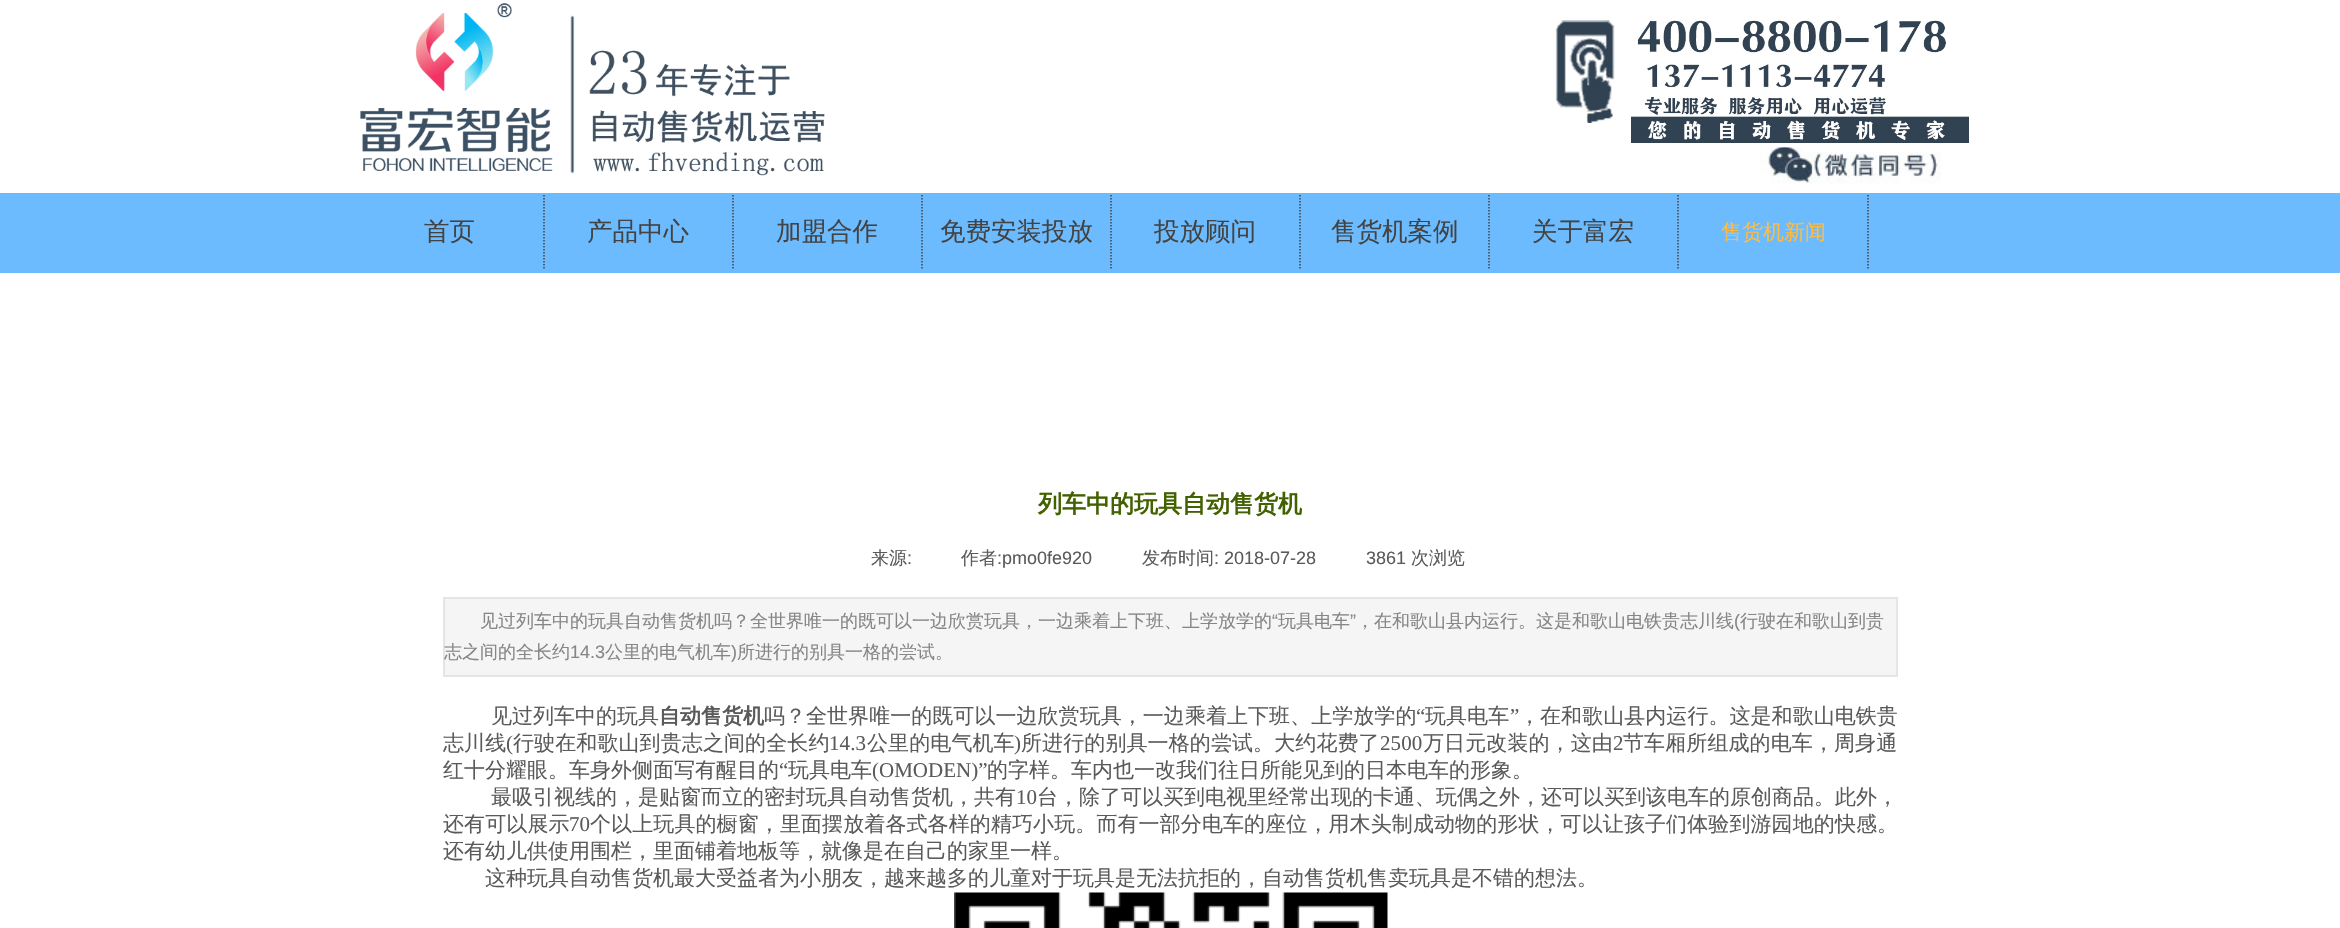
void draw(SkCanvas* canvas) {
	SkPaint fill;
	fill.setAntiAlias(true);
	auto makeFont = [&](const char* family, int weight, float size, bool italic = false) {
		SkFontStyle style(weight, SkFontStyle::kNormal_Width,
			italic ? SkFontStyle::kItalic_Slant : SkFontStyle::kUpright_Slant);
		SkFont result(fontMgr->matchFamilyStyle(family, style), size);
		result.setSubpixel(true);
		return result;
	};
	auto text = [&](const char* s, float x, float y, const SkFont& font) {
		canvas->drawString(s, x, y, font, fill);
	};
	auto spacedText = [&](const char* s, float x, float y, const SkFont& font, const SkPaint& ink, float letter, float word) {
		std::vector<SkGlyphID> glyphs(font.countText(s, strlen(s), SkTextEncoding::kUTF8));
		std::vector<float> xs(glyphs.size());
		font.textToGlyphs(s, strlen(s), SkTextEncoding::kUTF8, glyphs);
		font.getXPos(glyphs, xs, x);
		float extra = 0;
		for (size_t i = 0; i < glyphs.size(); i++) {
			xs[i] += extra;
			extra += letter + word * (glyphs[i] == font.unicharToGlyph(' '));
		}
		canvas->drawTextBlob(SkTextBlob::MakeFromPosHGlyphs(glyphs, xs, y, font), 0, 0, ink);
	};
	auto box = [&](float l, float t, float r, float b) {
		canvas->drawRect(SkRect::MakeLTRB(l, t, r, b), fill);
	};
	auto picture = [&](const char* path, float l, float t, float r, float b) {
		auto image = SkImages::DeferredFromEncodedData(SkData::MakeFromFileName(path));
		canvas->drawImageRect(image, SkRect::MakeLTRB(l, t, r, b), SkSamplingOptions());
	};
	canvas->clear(0xFFFFFFFF);
	picture("image0.png", 360, 3, 825, 176);
	picture("image1.png", 1555, 20, 1969, 147);
	picture("image2.png", 1760, 147, 1941, 184);
	fill.setColor(0xFF6CBBFF);
	box(0, 193, 2340, 273);
	fill.setStyle(SkPaint::kStroke_Style);
	fill.setStrokeWidth(1.5f);
	fill.setColor(0xFF434343);
	fill.setPathEffect(SkDashPathEffect::Make({{1.5f, 1.5f}}, 0));
	canvas->drawPath(SkPathBuilder().moveTo(544, 195).lineTo(544, 270).detach(), fill);
	fill.setPathEffect(nullptr);
	fill.setPathEffect(SkDashPathEffect::Make({{1.5f, 1.5f}}, 0));
	canvas->drawPath(SkPathBuilder().moveTo(733, 195).lineTo(733, 270).detach(), fill);
	fill.setPathEffect(nullptr);
	fill.setPathEffect(SkDashPathEffect::Make({{1.5f, 1.5f}}, 0));
	canvas->drawPath(SkPathBuilder().moveTo(922, 195).lineTo(922, 270).detach(), fill);
	fill.setPathEffect(nullptr);
	fill.setPathEffect(SkDashPathEffect::Make({{1.5f, 1.5f}}, 0));
	canvas->drawPath(SkPathBuilder().moveTo(1111, 195).lineTo(1111, 270).detach(), fill);
	fill.setPathEffect(nullptr);
	fill.setPathEffect(SkDashPathEffect::Make({{1.5f, 1.5f}}, 0));
	canvas->drawPath(SkPathBuilder().moveTo(1300, 195).lineTo(1300, 270).detach(), fill);
	fill.setPathEffect(nullptr);
	fill.setPathEffect(SkDashPathEffect::Make({{1.5f, 1.5f}}, 0));
	canvas->drawPath(SkPathBuilder().moveTo(1489, 195).lineTo(1489, 270).detach(), fill);
	fill.setPathEffect(nullptr);
	fill.setPathEffect(SkDashPathEffect::Make({{1.5f, 1.5f}}, 0));
	canvas->drawPath(SkPathBuilder().moveTo(1678, 195).lineTo(1678, 270).detach(), fill);
	fill.setPathEffect(nullptr);
	fill.setPathEffect(SkDashPathEffect::Make({{1.5f, 1.5f}}, 0));
	canvas->drawPath(SkPathBuilder().moveTo(1868, 195).lineTo(1868, 270).detach(), fill);
	fill.setPathEffect(nullptr);
	fill.setStyle(SkPaint::kFill_Style);
	fill.setColor(0xFFF5F5F5);
	canvas->drawRect(SkRect::MakeLTRB(444, 598, 1897, 676), fill);
	fill.setStyle(SkPaint::kStroke_Style);
	fill.setStrokeWidth(2);
	fill.setColor(0xFFE5E5E5);
	canvas->drawRect(SkRect::MakeLTRB(444, 598, 1897, 676), fill);
	picture("image3.png", 954, 892, 1388, 928);
	auto font1 = makeFont("WenQuanYi Zen Hei", 500, 25.5f);
	fill.setStyle(SkPaint::kFill_Style);
	fill.setColor(0xFF434343);
	text("首页", 424, 240, font1);
	text("产品中心", 587, 240, font1);
	text("加盟合作", 776, 240, font1);
	text("免费安装投放", 940, 240, font1);
	text("投放顾问", 1154, 240, font1);
	text("售货机案例", 1331, 240, font1);
	text("关于富宏", 1532, 240, font1);
	auto font2 = makeFont("WenQuanYi Zen Hei", 500, 21);
	fill.setColor(0xFFFFBB41);
	text("售货机新闻", 1721, 239, font2);
	auto font3 = makeFont("WenQuanYi Zen Hei", 700, 24);
	fill.setColor(0xFF426100);
	text("列车中的玩具自动售货机", 1038, 512, font3);
	auto font4 = makeFont("WenQuanYi Zen Hei", 500, 18);
	fill.setColor(0xFF5A5A5A);
	text("来源", 871, 564, font4);
	auto font5 = makeFont("Liberation Sans", 400, 18);
	text(":", 907, 564, font5);
	text("作者", 961, 564, font4);
	text(":pmo0fe920", 997, 564, font5);
	text("发布时间", 1142, 564, font4);
	text(": 2018-07-28", 1214, 564, font5);
	text("3861", 1366, 564, font5);
	text("次浏览", 1411, 564, font4);
	fill.setColor(0xFF868686);
	text("见过列车中的玩具自动售货机吗？全世界唯一的既可以一边欣赏玩具，一边乘着上下班、上学放学的", 480, 627, font4);
	text("“", 1272, 627, font5);
	text("玩具电车", 1278, 627, font4);
	text("”", 1350, 627, font5);
	text("，在和歌山县内运行。这是和歌山电铁贵志川线", 1356, 627, font4);
	text("(", 1734, 627, font5);
	text("行驶在和歌山到贵", 1740, 627, font4);
	text("志之间的全长约", 444, 658, font4);
	text("14.3", 570, 658, font5);
	text("公里的电气机车", 605, 658, font4);
	text(")", 731, 658, font5);
	text("所进行的别具一格的尝试。", 737, 658, font4);
	fill.setColor(0xFF5A5A5A);
	text("见过列车中的玩具", 491, 723, font2);
	auto font6 = makeFont("WenQuanYi Zen Hei", 700, 21);
	text("自动售货机", 659, 723, font6);
	text("吗？", 764, 723, font2);
	spacedText("全世界唯一的既可以一边欣赏玩具，一边乘着上下班、上学放学的", 806, 723, font2, fill, 0.05f, 0);
	auto font7 = makeFont("Liberation Serif", 400, 21);
	spacedText("“", 1416, 723, font7, fill, 0.05f, 0);
	spacedText("玩具电车", 1425, 723, font2, fill, 0.05f, 0);
	spacedText("”", 1510, 723, font7, fill, 0.05f, 0);
	spacedText("，在和歌山县内运行。这是和歌山电铁贵", 1519, 723, font2, fill, 0.05f, 0);
	spacedText("志川线", 443, 750, font2, fill, 0.1f, 0);
	spacedText("(", 506, 750, font7, fill, 0.1f, 0);
	spacedText("行驶在和歌山到贵志之间的全长约", 513, 750, font2, fill, 0.1f, 0);
	spacedText("14.3", 829, 750, font7, fill, 0.1f, 0);
	spacedText("公里的电气机车", 867, 750, font2, fill, 0.1f, 0);
	spacedText(")", 1014, 750, font7, fill, 0.1f, 0);
	spacedText("所进行的别具一格的尝试。大约花费了", 1021, 750, font2, fill, 0.1f, 0);
	spacedText("2500", 1380, 750, font7, fill, 0.1f, 0);
	spacedText("万日元改装的，这由", 1423, 750, font2, fill, 0.1f, 0);
	spacedText("2", 1613, 750, font7, fill, 0.1f, 0);
	spacedText("节车厢所组成的电车，周身通", 1623, 750, font2, fill, 0.1f, 0);
	text("红十分耀眼。车身外侧面写有醒目的", 443, 777, font2);
	text("“", 779, 777, font7);
	text("玩具电车", 788, 777, font2);
	text("(OMODEN)”", 872, 777, font7);
	text("的字样。车内也一改我们往日所能见到的日本电车的形象。", 987, 777, font2);
	text("最吸引视线的，是贴窗而立的密封玩具自动售货机，共有", 491, 804, font2);
	text("10", 1016, 804, font7);
	text("台，除了可以买到电视里经常出现的卡通、玩偶之外，还可以买到该电车的原创商品。此外，", 1037, 804, font2);
	spacedText("还有可以展示", 443, 831, font2, fill, 0.1f, 0);
	spacedText("70", 569, 831, font7, fill, 0.1f, 0);
	spacedText("个以上玩具的橱窗，里面摆放着各式各样的精巧小玩。而有一部分电车的座位，用木头制成动物的形状，可以让孩子们体验到游园地的快感。", 590, 831, font2, fill, 0.1f, 0);
	text("还有幼儿供使用围栏，里面铺着地板等，就像是在自己的家里一样。", 443, 858, font2);
	text("这种玩具自动售货机最大受益者为小朋友，越来越多的儿童对于玩具是无法抗拒的，自动售货机售卖玩具是不错的想法。", 485, 885, font2);
}
